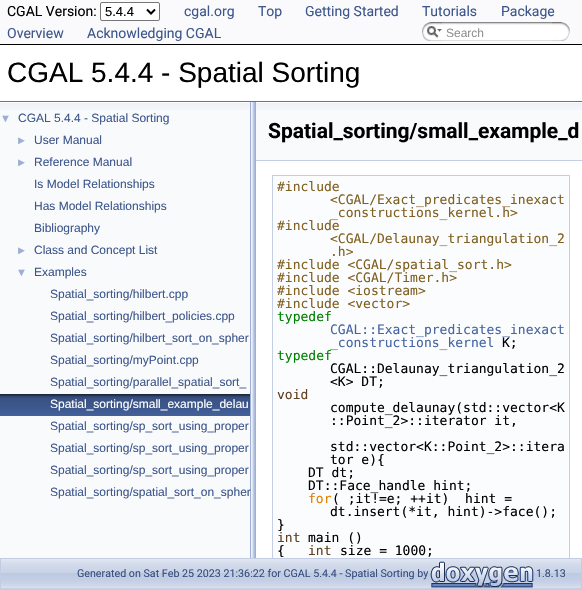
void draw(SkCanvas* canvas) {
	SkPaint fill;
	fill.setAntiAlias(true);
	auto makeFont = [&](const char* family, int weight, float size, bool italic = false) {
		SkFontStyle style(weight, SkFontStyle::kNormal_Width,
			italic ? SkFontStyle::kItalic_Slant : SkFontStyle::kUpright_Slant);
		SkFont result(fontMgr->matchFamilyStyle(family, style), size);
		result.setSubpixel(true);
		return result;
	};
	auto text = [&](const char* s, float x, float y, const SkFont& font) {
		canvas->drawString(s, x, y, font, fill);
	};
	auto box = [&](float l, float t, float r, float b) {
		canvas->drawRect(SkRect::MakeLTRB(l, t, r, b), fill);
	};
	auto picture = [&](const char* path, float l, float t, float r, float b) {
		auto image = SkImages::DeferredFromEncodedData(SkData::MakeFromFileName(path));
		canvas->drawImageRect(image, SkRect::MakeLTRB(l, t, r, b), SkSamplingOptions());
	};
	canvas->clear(0xFFFFFFFF);
	fill.setColor(0xFFFAF9FB);
	box(0, 0, 582, 44);
	fill.setColor(0xFF000000);
	box(0, 44, 582, 45);
	fill.setColor(0xFFFFFFFF);
	canvas->drawRoundRect(SkRect::MakeLTRB(100.5f, 2.5f, 159.5f, 20.5f), 1.5f, 1.5f, fill);
	fill.setStyle(SkPaint::kStroke_Style);
	fill.setStrokeWidth(1);
	fill.setColor(0xFF767676);
	canvas->drawRoundRect(SkRect::MakeLTRB(100.5f, 2.5f, 159.5f, 20.5f), 1.5f, 1.5f, fill);
	fill.setStrokeWidth(2);
	fill.setColor(0xFF000000);
	canvas->drawPath(SkPathBuilder().moveTo(147, 9.5f).lineTo(151, 13.5f).lineTo(155, 9.5f).detach(), fill);
	picture("image0.png", 422, 22, 442, 41);
	picture("image1.png", 427, 26, 442, 38);
	picture("image2.png", 442, 22, 552, 41);
	picture("image3.png", 552, 22, 570, 41);
	fill.setStyle(SkPaint::kFill_Style);
	fill.setColor(0xFF5373B4);
	box(0, 101, 582, 102);
	fill.setColor(0xFFF9FAFC);
	box(0, 110, 250, 558);
	picture("image4.png", 0, 102, 250, 110);
	picture("image5.png", 0, 394, 250, 416);
	picture("image6.png", 250, 102, 256, 558);
	box(256, 110, 582, 160);
	picture("image7.png", 256, 102, 582, 110);
	fill.setColor(0xFFC4CFE5);
	box(256, 160, 582, 161);
	fill.setColor(0xFFFBFCFD);
	box(273, 176, 569, 558);
	fill.setStyle(SkPaint::kStroke_Style);
	fill.setStrokeWidth(1);
	fill.setColor(0xFFC4CFE5);
	canvas->drawRect(SkRect::MakeLTRB(272.5f, 175.5f, 569.5f, 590.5f), fill);
	picture("image8.png", 1, 559, 581, 589);
	fill.setColor(0xFFC2CDE4);
	canvas->drawRect(SkRect::MakeLTRB(0.5f, 558.5f, 581.5f, 589.5f), fill);
	picture("image9.png", 430, 561, 534, 588);
	auto font1 = makeFont("Roboto", 400, 14);
	fill.setStyle(SkPaint::kFill_Style);
	fill.setColor(0xFF000000);
	text("CGAL Version:", 7, 16, font1);
	auto font2 = makeFont("Liberation Sans", 400, 13);
	text("5.4.4", 105, 16, font2);
	fill.setColor(0xFF3D578C);
	text("cgal.org", 184, 16, font1);
	text("Top", 258, 16, font1);
	text("Getting Started", 305, 16, font1);
	text("Tutorials", 422, 16, font1);
	text("Package", 501, 16, font1);
	text("Overview", 7, 38, font1);
	text("Acknowledging CGAL", 87, 38, font1);
	auto font3 = makeFont("Liberation Sans", 400, 12);
	fill.setColor(0xFF909090);
	text("Search", 446, 37, font3);
	auto font4 = makeFont("Liberation Sans", 400, 28);
	fill.setColor(0xFF000000);
	text("CGAL 5.4.4 - Spatial Sorting", 7, 82, font4);
	auto font5 = makeFont("Liberation Sans", 400, 11);
	fill.setColor(0xFF9CAFD4);
	text("▼", 0, 122, font5);
	fill.setColor(0xFF3D578C);
	text("CGAL 5.4.4 - Spatial Sorting", 18, 122, font3);
	fill.setColor(0xFF9CAFD4);
	text("►", 16, 144, font5);
	fill.setColor(0xFF3D578C);
	text("User Manual", 34, 144, font3);
	fill.setColor(0xFF9CAFD4);
	text("►", 16, 166, font5);
	fill.setColor(0xFF3D578C);
	text("Reference Manual", 34, 166, font3);
	text("Is Model Relationships", 34, 188, font3);
	text("Has Model Relationships", 34, 210, font3);
	text("Bibliography", 34, 232, font3);
	fill.setColor(0xFF9CAFD4);
	text("►", 16, 254, font5);
	fill.setColor(0xFF3D578C);
	text("Class and Concept List", 34, 254, font3);
	fill.setColor(0xFF9CAFD4);
	text("▼", 16, 276, font5);
	fill.setColor(0xFF3D578C);
	text("Examples", 34, 276, font3);
	text("Spatial_sorting/hilbert.cpp", 50, 298, font3);
	text("Spatial_sorting/hilbert_policies.cpp", 50, 320, font3);
	text("Spatial_sorting/hilbert_sort_on_spher", 50, 342, font3);
	text("Spatial_sorting/myPoint.cpp", 50, 364, font3);
	text("Spatial_sorting/parallel_spatial_sort_", 50, 386, font3);
	fill.setColor(0xFFFFFFFF);
	text("Spatial_sorting/small_example_delau", 50, 408, font3);
	fill.setColor(0xFF3D578C);
	text("Spatial_sorting/sp_sort_using_proper", 50, 430, font3);
	text("Spatial_sorting/sp_sort_using_proper", 50, 452, font3);
	text("Spatial_sorting/sp_sort_using_proper", 50, 474, font3);
	text("Spatial_sorting/spatial_sort_on_spher", 50, 496, font3);
	auto font6 = makeFont("Roboto", 700, 21);
	fill.setColor(0xFF000000);
	text("Spatial_sorting/small_example_d", 268, 138, font6);
	auto font7 = makeFont("DejaVu Sans Mono", 400, 13);
	fill.setColor(0xFF806020);
	text("#include", 277, 191, font7);
	text("<CGAL/Exact_predicates_inexact", 330, 204, font7);
	text("_constructions_kernel.h>", 330, 217, font7);
	text("#include", 277, 230, font7);
	text("<CGAL/Delaunay_triangulation_2", 330, 243, font7);
	text(".h>", 330, 256, font7);
	text("#include <CGAL/spatial_sort.h>", 277, 269, font7);
	text("#include <CGAL/Timer.h>", 277, 282, font7);
	text("#include <iostream>", 277, 295, font7);
	text("#include <vector>", 277, 308, font7);
	fill.setColor(0xFF008000);
	text("typedef", 277, 321, font7);
	fill.setColor(0xFF4665A2);
	text("CGAL::Exact_predicates_inexact", 330, 334, font7);
	text("_constructions_kernel", 330, 347, font7);
	fill.setColor(0xFF000000);
	text("K;", 502, 347, font7);
	fill.setColor(0xFF008000);
	text("typedef", 277, 360, font7);
	fill.setColor(0xFF000000);
	text("CGAL::Delaunay_triangulation_2", 330, 373, font7);
	text("<K> DT;", 330, 386, font7);
	fill.setColor(0xFF604020);
	text("void", 277, 399, font7);
	fill.setColor(0xFF000000);
	text("compute_delaunay(std::vector<K", 330, 412, font7);
	text("::Point_2>::iterator it,", 330, 425, font7);
	text("std::vector<K::Point_2>::itera", 330, 451, font7);
	text("tor e){", 330, 464, font7);
	text("DT dt;", 308, 477, font7);
	text("DT::Face_handle hint;", 308, 490, font7);
	fill.setColor(0xFFE08000);
	text("for", 308, 503, font7);
	fill.setColor(0xFF000000);
	text("( ;it!=e; ++it)  hint =", 332, 503, font7);
	text("dt.insert(*it, hint)->face();", 330, 516, font7);
	text("}", 277, 529, font7);
	fill.setColor(0xFF604020);
	text("int", 277, 542, font7);
	fill.setColor(0xFF000000);
	text("main ()", 308, 542, font7);
	text("{", 277, 555, font7);
	fill.setColor(0xFF604020);
	text("int", 308, 555, font7);
	fill.setColor(0xFF000000);
	text("size = 1000;", 340, 555, font7);
	auto font8 = makeFont("Roboto", 400, 10.7f);
	fill.setColor(0xFF364D7C);
	text("Generated on Sat Feb 25 2023 21:36:22 for CGAL 5.4.4 - Spatial Sorting by", 77, 577, font8);
	text("1.8.13", 536, 577, font8);
}
